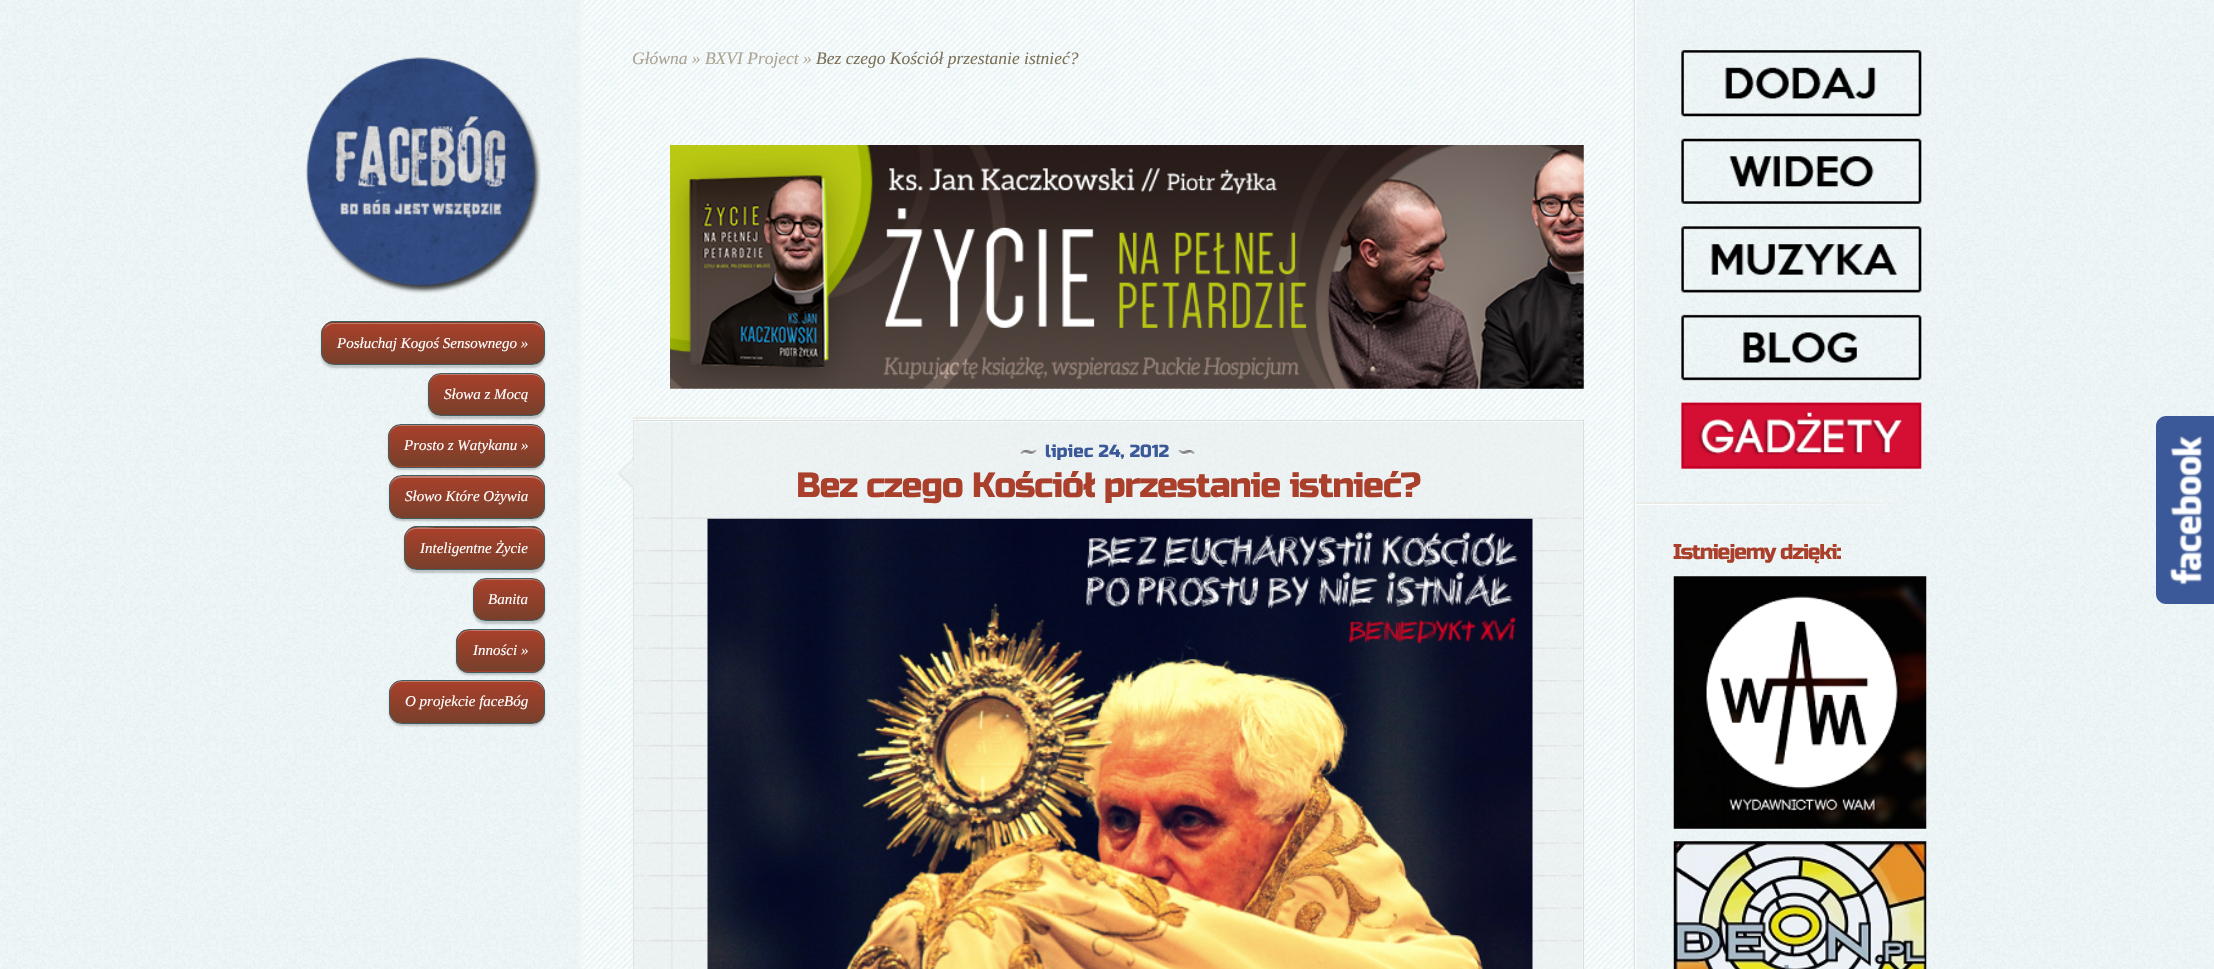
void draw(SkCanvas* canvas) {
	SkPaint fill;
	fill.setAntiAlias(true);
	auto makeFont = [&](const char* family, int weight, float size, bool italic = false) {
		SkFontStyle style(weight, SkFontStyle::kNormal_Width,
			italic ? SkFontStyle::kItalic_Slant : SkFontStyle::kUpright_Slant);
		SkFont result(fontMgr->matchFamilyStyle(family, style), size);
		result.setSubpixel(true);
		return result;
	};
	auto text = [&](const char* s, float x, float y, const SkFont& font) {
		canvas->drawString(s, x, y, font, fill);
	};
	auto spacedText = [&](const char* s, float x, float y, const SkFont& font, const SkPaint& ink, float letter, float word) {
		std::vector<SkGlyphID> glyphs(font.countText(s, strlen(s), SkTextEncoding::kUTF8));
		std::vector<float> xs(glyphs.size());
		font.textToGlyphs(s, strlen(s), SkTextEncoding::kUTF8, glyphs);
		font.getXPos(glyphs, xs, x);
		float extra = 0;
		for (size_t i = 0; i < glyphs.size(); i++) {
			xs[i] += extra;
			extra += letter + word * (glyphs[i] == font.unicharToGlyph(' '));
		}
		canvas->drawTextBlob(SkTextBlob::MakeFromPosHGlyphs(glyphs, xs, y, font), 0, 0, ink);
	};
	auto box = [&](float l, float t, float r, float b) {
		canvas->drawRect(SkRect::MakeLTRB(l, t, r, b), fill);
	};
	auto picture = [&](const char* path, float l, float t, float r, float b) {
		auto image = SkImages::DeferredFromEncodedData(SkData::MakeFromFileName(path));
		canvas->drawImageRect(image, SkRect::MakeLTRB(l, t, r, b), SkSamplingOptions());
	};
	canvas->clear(0xFFFFFFFF);
	picture("image0.png", 0, 0, 2214, 969);
	picture("image1.png", 583, 0, 1634, 969);
	picture("image2.png", 306, 57, 541, 294);
	fill.setColor(0x33000000);
	fill.setMaskFilter(SkMaskFilter::MakeBlur(kNormal_SkBlurStyle, 1));
	canvas->drawRoundRect(SkRect::MakeLTRB(321, 324, 545, 368), 13, 13, fill);
	fill.setMaskFilter(nullptr);
	canvas->save();
	canvas->clipPath(SkPathBuilder().moveTo(334, 321).lineTo(532, 321).cubicTo(539, 321, 545, 327, 545, 334).lineTo(545, 352).cubicTo(545, 359, 539, 365, 532, 365).lineTo(334, 365).cubicTo(327, 365, 321, 359, 321, 352).lineTo(321, 334).cubicTo(321, 327, 327, 321, 334, 321).close().detach(), true);
	{
		const SkColor colors[] = {0xFFAA402B, 0xFF77402B};
		const float stops[] = {0, 1};
		const SkPoint ends[] = {{433, 281}, {433, 323}};
		fill.setShader(SkGradientShader::MakeLinear(ends, colors, stops, 2, SkTileMode::kClamp));
		fill.setAlpha(255);
	}
	box(321, 321, 545, 323);
	{
		const SkColor colors[] = {0xFFAA402B, 0xFF77402B};
		const float stops[] = {0, 1};
		const SkPoint ends[] = {{433, 323}, {433, 364}};
		fill.setShader(SkGradientShader::MakeLinear(ends, colors, stops, 2, SkTileMode::kClamp));
		fill.setAlpha(255);
	}
	box(321, 323, 545, 364);
	canvas->restore();
	fill.setShader(nullptr);
	fill.setColor(0x4DFFFFFF);
	canvas->drawPath(SkPathBuilder().moveTo(334, 324).lineTo(532, 324).cubicTo(539, 324, 544, 329, 544, 335).lineTo(544, 334).cubicTo(544, 328, 539, 323, 533, 323).lineTo(334, 323).cubicTo(330, 323, 326, 325, 324, 329).cubicTo(327, 326, 330, 324, 334, 324).close().detach(), fill);
	fill.setStyle(SkPaint::kStroke_Style);
	fill.setStrokeWidth(1);
	fill.setColor(0xFF415F62);
	canvas->drawRoundRect(SkRect::MakeLTRB(321.5f, 321.5f, 544.5f, 364.5f), 12.5f, 12.5f, fill);
	fill.setStyle(SkPaint::kFill_Style);
	fill.setColor(0x33000000);
	fill.setMaskFilter(SkMaskFilter::MakeBlur(kNormal_SkBlurStyle, 1));
	canvas->drawRoundRect(SkRect::MakeLTRB(428, 375, 545, 419), 13, 13, fill);
	fill.setMaskFilter(nullptr);
	canvas->save();
	canvas->clipPath(SkPathBuilder().moveTo(441, 373).lineTo(532, 373).cubicTo(539, 373, 545, 379, 545, 386).lineTo(545, 403).cubicTo(545, 410, 539, 416, 532, 416).lineTo(441, 416).cubicTo(434, 416, 428, 410, 428, 403).lineTo(428, 386).cubicTo(428, 379, 434, 373, 441, 373).close().detach(), true);
	{
		const SkColor colors[] = {0xFFAA402B, 0xFF77402B};
		const float stops[] = {0, 1};
		const SkPoint ends[] = {{486, 374}, {486, 415}};
		fill.setShader(SkGradientShader::MakeLinear(ends, colors, stops, 2, SkTileMode::kClamp));
		fill.setAlpha(255);
	}
	box(428, 374, 545, 415);
	canvas->restore();
	fill.setShader(nullptr);
	fill.setColor(0x4DFFFFFF);
	canvas->drawPath(SkPathBuilder().moveTo(440, 375).lineTo(532, 375).cubicTo(539, 375, 544, 380, 544, 386).cubicTo(544, 371, 528, 374, 518, 374).lineTo(456, 374).cubicTo(445, 374, 429, 371, 429, 386).cubicTo(429, 380, 434, 375, 440, 375).close().detach(), fill);
	fill.setStyle(SkPaint::kStroke_Style);
	fill.setColor(0xFF415F62);
	canvas->drawRoundRect(SkRect::MakeLTRB(428.5f, 373.5f, 544.5f, 415.5f), 12.5f, 12.5f, fill);
	fill.setStyle(SkPaint::kFill_Style);
	fill.setColor(0x33000000);
	fill.setMaskFilter(SkMaskFilter::MakeBlur(kNormal_SkBlurStyle, 1));
	canvas->drawRoundRect(SkRect::MakeLTRB(388, 426, 545, 470), 13, 13, fill);
	fill.setMaskFilter(nullptr);
	canvas->save();
	canvas->clipPath(SkPathBuilder().moveTo(401, 424).lineTo(532, 424).cubicTo(539, 424, 545, 430, 545, 437).lineTo(545, 455).cubicTo(545, 462, 539, 468, 532, 468).lineTo(401, 468).cubicTo(394, 468, 388, 462, 388, 455).lineTo(388, 437).cubicTo(388, 430, 394, 424, 401, 424).close().detach(), true);
	{
		const SkColor colors[] = {0xFFAA402B, 0xFF77402B};
		const float stops[] = {0, 1};
		const SkPoint ends[] = {{466, 425}, {466, 466}};
		fill.setShader(SkGradientShader::MakeLinear(ends, colors, stops, 2, SkTileMode::kClamp));
		fill.setAlpha(255);
	}
	box(388, 425, 545, 466);
	{
		const SkColor colors[] = {0xFFAA402B, 0xFF77402B};
		const float stops[] = {0, 1};
		const SkPoint ends[] = {{466, 466}, {466, 508}};
		fill.setShader(SkGradientShader::MakeLinear(ends, colors, stops, 2, SkTileMode::kClamp));
		fill.setAlpha(255);
	}
	box(388, 466, 545, 468);
	canvas->restore();
	fill.setShader(nullptr);
	fill.setColor(0x4DFFFFFF);
	canvas->drawPath(SkPathBuilder().moveTo(400, 426).lineTo(532, 426).cubicTo(539, 426, 544, 431, 544, 438).cubicTo(544, 420, 523, 425, 511, 425).lineTo(422, 425).cubicTo(410, 425, 389, 420, 389, 438).cubicTo(389, 431, 394, 426, 400, 426).close().detach(), fill);
	fill.setStyle(SkPaint::kStroke_Style);
	fill.setColor(0xFF415F62);
	canvas->drawRoundRect(SkRect::MakeLTRB(388.5f, 424.5f, 544.5f, 467.5f), 12.5f, 12.5f, fill);
	fill.setStyle(SkPaint::kFill_Style);
	fill.setColor(0x33000000);
	fill.setMaskFilter(SkMaskFilter::MakeBlur(kNormal_SkBlurStyle, 1));
	canvas->drawRoundRect(SkRect::MakeLTRB(389, 478, 545, 521), 13, 13, fill);
	fill.setMaskFilter(nullptr);
	canvas->save();
	canvas->clipPath(SkPathBuilder().moveTo(402, 475).lineTo(532, 475).cubicTo(539, 475, 545, 481, 545, 488).lineTo(545, 506).cubicTo(545, 513, 539, 519, 532, 519).lineTo(402, 519).cubicTo(395, 519, 389, 513, 389, 506).lineTo(389, 488).cubicTo(389, 481, 395, 475, 402, 475).close().detach(), true);
	{
		const SkColor colors[] = {0xFFAA402B, 0xFF77402B};
		const float stops[] = {0, 1};
		const SkPoint ends[] = {{467, 476}, {467, 518}};
		fill.setShader(SkGradientShader::MakeLinear(ends, colors, stops, 2, SkTileMode::kClamp));
		fill.setAlpha(255);
	}
	box(389, 476, 545, 518);
	canvas->restore();
	fill.setShader(nullptr);
	fill.setColor(0x4DFFFFFF);
	canvas->drawPath(SkPathBuilder().moveTo(401, 478).lineTo(532, 478).cubicTo(539, 478, 544, 483, 544, 489).cubicTo(544, 471, 524, 476, 511, 476).lineTo(423, 476).cubicTo(410, 476, 390, 471, 390, 489).cubicTo(390, 483, 395, 478, 401, 478).close().detach(), fill);
	fill.setStyle(SkPaint::kStroke_Style);
	fill.setColor(0xFF415F62);
	canvas->drawRoundRect(SkRect::MakeLTRB(389.5f, 475.5f, 544.5f, 518.5f), 12.5f, 12.5f, fill);
	fill.setStyle(SkPaint::kFill_Style);
	fill.setColor(0x33000000);
	fill.setMaskFilter(SkMaskFilter::MakeBlur(kNormal_SkBlurStyle, 1));
	canvas->drawRoundRect(SkRect::MakeLTRB(404, 529, 545, 573), 13, 13, fill);
	fill.setMaskFilter(nullptr);
	canvas->save();
	canvas->clipPath(SkPathBuilder().moveTo(417, 526).lineTo(532, 526).cubicTo(539, 526, 545, 532, 545, 539).lineTo(545, 557).cubicTo(545, 564, 539, 570, 532, 570).lineTo(417, 570).cubicTo(410, 570, 404, 564, 404, 557).lineTo(404, 539).cubicTo(404, 532, 410, 526, 417, 526).close().detach(), true);
	{
		const SkColor colors[] = {0xFFAA402B, 0xFF77402B};
		const float stops[] = {0, 1};
		const SkPoint ends[] = {{474, 486}, {474, 528}};
		fill.setShader(SkGradientShader::MakeLinear(ends, colors, stops, 2, SkTileMode::kClamp));
		fill.setAlpha(255);
	}
	box(404, 526, 545, 528);
	{
		const SkColor colors[] = {0xFFAA402B, 0xFF77402B};
		const float stops[] = {0, 1};
		const SkPoint ends[] = {{474, 528}, {474, 569}};
		fill.setShader(SkGradientShader::MakeLinear(ends, colors, stops, 2, SkTileMode::kClamp));
		fill.setAlpha(255);
	}
	box(404, 528, 545, 569);
	canvas->restore();
	fill.setShader(nullptr);
	fill.setColor(0x4DFFFFFF);
	canvas->drawPath(SkPathBuilder().moveTo(416, 529).lineTo(532, 529).cubicTo(539, 529, 544, 534, 544, 540).cubicTo(544, 523, 524, 528, 514, 528).lineTo(436, 528).cubicTo(425, 528, 405, 523, 405, 540).cubicTo(405, 534, 410, 529, 416, 529).close().detach(), fill);
	fill.setStyle(SkPaint::kStroke_Style);
	fill.setColor(0xFF415F62);
	canvas->drawRoundRect(SkRect::MakeLTRB(404.5f, 526.5f, 544.5f, 569.5f), 12.5f, 12.5f, fill);
	fill.setStyle(SkPaint::kFill_Style);
	fill.setColor(0x33000000);
	fill.setMaskFilter(SkMaskFilter::MakeBlur(kNormal_SkBlurStyle, 1));
	canvas->drawRoundRect(SkRect::MakeLTRB(473, 580, 545, 624), 13, 13, fill);
	fill.setMaskFilter(nullptr);
	canvas->save();
	canvas->clipPath(SkPathBuilder().moveTo(486, 578).lineTo(532, 578).cubicTo(539, 578, 545, 584, 545, 591).lineTo(545, 608).cubicTo(545, 615, 539, 621, 532, 621).lineTo(486, 621).cubicTo(479, 621, 473, 615, 473, 608).lineTo(473, 591).cubicTo(473, 584, 479, 578, 486, 578).close().detach(), true);
	{
		const SkColor colors[] = {0xFFAA402B, 0xFF77402B};
		const float stops[] = {0, 1};
		const SkPoint ends[] = {{509, 579}, {509, 620}};
		fill.setShader(SkGradientShader::MakeLinear(ends, colors, stops, 2, SkTileMode::kClamp));
		fill.setAlpha(255);
	}
	box(473, 579, 545, 620);
	canvas->restore();
	fill.setShader(nullptr);
	fill.setColor(0x4DFFFFFF);
	canvas->drawPath(SkPathBuilder().moveTo(485, 580).lineTo(532, 580).cubicTo(539, 580, 544, 585, 544, 591).cubicTo(544, 579, 534, 579, 525, 579).lineTo(493, 579).cubicTo(484, 579, 474, 579, 474, 591).cubicTo(474, 585, 479, 580, 485, 580).close().detach(), fill);
	fill.setStyle(SkPaint::kStroke_Style);
	fill.setColor(0xFF415F62);
	canvas->drawRoundRect(SkRect::MakeLTRB(473.5f, 578.5f, 544.5f, 620.5f), 12.5f, 12.5f, fill);
	fill.setStyle(SkPaint::kFill_Style);
	fill.setColor(0x33000000);
	fill.setMaskFilter(SkMaskFilter::MakeBlur(kNormal_SkBlurStyle, 1));
	canvas->drawRoundRect(SkRect::MakeLTRB(456, 631, 545, 675), 13, 13, fill);
	fill.setMaskFilter(nullptr);
	canvas->save();
	canvas->clipPath(SkPathBuilder().moveTo(469, 629).lineTo(532, 629).cubicTo(539, 629, 545, 635, 545, 642).lineTo(545, 660).cubicTo(545, 667, 539, 673, 532, 673).lineTo(469, 673).cubicTo(462, 673, 456, 667, 456, 660).lineTo(456, 642).cubicTo(456, 635, 462, 629, 469, 629).close().detach(), true);
	{
		const SkColor colors[] = {0xFFAA402B, 0xFF77402B};
		const float stops[] = {0, 1};
		const SkPoint ends[] = {{501, 630}, {501, 671}};
		fill.setShader(SkGradientShader::MakeLinear(ends, colors, stops, 2, SkTileMode::kClamp));
		fill.setAlpha(255);
	}
	box(456, 630, 545, 671);
	{
		const SkColor colors[] = {0xFFAA402B, 0xFF77402B};
		const float stops[] = {0, 1};
		const SkPoint ends[] = {{501, 671}, {501, 713}};
		fill.setShader(SkGradientShader::MakeLinear(ends, colors, stops, 2, SkTileMode::kClamp));
		fill.setAlpha(255);
	}
	box(456, 671, 545, 673);
	canvas->restore();
	fill.setShader(nullptr);
	fill.setColor(0x4DFFFFFF);
	canvas->drawPath(SkPathBuilder().moveTo(469, 631).lineTo(532, 631).cubicTo(539, 631, 544, 636, 544, 642).cubicTo(544, 629, 532, 630, 522, 630).lineTo(480, 630).cubicTo(470, 630, 458, 629, 458, 642).cubicTo(458, 636, 463, 631, 469, 631).close().detach(), fill);
	fill.setStyle(SkPaint::kStroke_Style);
	fill.setColor(0xFF415F62);
	canvas->drawRoundRect(SkRect::MakeLTRB(456.5f, 629.5f, 544.5f, 672.5f), 12.5f, 12.5f, fill);
	fill.setStyle(SkPaint::kFill_Style);
	fill.setColor(0x33000000);
	fill.setMaskFilter(SkMaskFilter::MakeBlur(kNormal_SkBlurStyle, 1));
	canvas->drawRoundRect(SkRect::MakeLTRB(389, 683, 545, 726), 13, 13, fill);
	fill.setMaskFilter(nullptr);
	canvas->save();
	canvas->clipPath(SkPathBuilder().moveTo(402, 680).lineTo(532, 680).cubicTo(539, 680, 545, 686, 545, 693).lineTo(545, 711).cubicTo(545, 718, 539, 724, 532, 724).lineTo(402, 724).cubicTo(395, 724, 389, 718, 389, 711).lineTo(389, 693).cubicTo(389, 686, 395, 680, 402, 680).close().detach(), true);
	{
		const SkColor colors[] = {0xFFAA402B, 0xFF77402B};
		const float stops[] = {0, 1};
		const SkPoint ends[] = {{467, 681}, {467, 723}};
		fill.setShader(SkGradientShader::MakeLinear(ends, colors, stops, 2, SkTileMode::kClamp));
		fill.setAlpha(255);
	}
	box(389, 681, 545, 723);
	canvas->restore();
	fill.setShader(nullptr);
	fill.setColor(0x4DFFFFFF);
	canvas->drawPath(SkPathBuilder().moveTo(401, 682).lineTo(532, 682).cubicTo(539, 682, 544, 688, 544, 694).cubicTo(544, 676, 524, 681, 511, 681).lineTo(423, 681).cubicTo(410, 681, 390, 676, 390, 694).cubicTo(390, 688, 395, 682, 401, 682).close().detach(), fill);
	fill.setStyle(SkPaint::kStroke_Style);
	fill.setColor(0xFF415F62);
	canvas->drawRoundRect(SkRect::MakeLTRB(389.5f, 680.5f, 544.5f, 723.5f), 12.5f, 12.5f, fill);
	fill.setStyle(SkPaint::kFill_Style);
	fill.setColor(0xFFF4F6F6);
	box(580, 0, 583, 969);
	picture("image3.png", 632, 417, 889, 420);
	picture("image4.png", 670, 145, 1584, 389);
	fill.setColor(0xFFD8DFE0);
	box(633, 420, 1584, 421);
	box(633, 420, 634, 969);
	fill.setColor(0x99FFFFFF);
	box(634, 421, 1583, 422);
	picture("image6.png", 633, 421, 1583, 969);
	picture("image8.png", 633, 421, 1583, 502);
	picture("image5.png", 618, 457, 634, 488);
	fill.setColor(0xFFD8DFE0);
	box(1583, 420, 1584, 969);
	fill.setColor(0x99FFFFFF);
	box(634, 421, 1583, 422);
	picture("image7.png", 671, 421, 673, 969);
	picture("image9.png", 1020, 450, 1037, 455);
	picture("image10.png", 1178, 450, 1195, 455);
	picture("image11.png", 707, 518, 1533, 969);
	picture("image13.png", 1636, 502, 1892, 505);
	picture("image12.png", 1633, 0, 1637, 969);
	picture("image14.png", 1681, 50, 1922, 117);
	picture("image15.png", 1681, 138, 1922, 204);
	picture("image16.png", 1681, 226, 1922, 293);
	picture("image17.png", 1681, 314, 1922, 381);
	picture("image18.png", 1681, 402, 1922, 469);
	picture("image19.png", 1673, 576, 1927, 829);
	picture("image20.png", 1673, 841, 1927, 969);
	fill.setColor(0xFF3B5998);
	canvas->drawPath(SkPathBuilder().moveTo(2166, 416).lineTo(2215, 416).lineTo(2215, 604).lineTo(2166, 604).cubicTo(2160.5f, 604, 2156, 599.5f, 2156, 594).lineTo(2156, 426).cubicTo(2156, 420.5f, 2160.5f, 416, 2166, 416).close().detach(), fill);
	picture("image21.png", 2169, 436, 2203, 585);
	auto font1 = makeFont("Liberation Serif", 400, 15, true);
	fill.setColor(0xFFFFFFFF);
	text("Posłuchaj Kogoś Sensownego »", 337, 348, font1);
	text("Słowa z Mocą", 444, 399, font1);
	text("Prosto z Watykanu »", 404, 450, font1);
	text("Słowo Które Ożywia", 405, 501, font1);
	text("Inteligentne Życie", 420, 553, font1);
	text("Banita", 488, 604, font1);
	text("Inności »", 473, 655, font1);
	text("O projekcie faceBóg", 405, 706, font1);
	auto font2 = makeFont("Liberation Serif", 400, 17.5f, true);
	fill.setColor(0xFFABA494);
	text("Główna » BXVI Project »", 632, 64, font2);
	fill.setColor(0xFF7B7159);
	text("Bez czego Kościół przestanie istnieć?", 816, 64, font2);
	auto font3 = makeFont("Russo One", 400, 17.5f);
	fill.setColor(0xFF3B5999);
	text("lipiec 24, 2012", 1045, 457, font3);
	auto font4 = makeFont("Russo One", 400, 35);
	fill.setColor(0xFFAA402B);
	spacedText("Bez czego Kościół przestanie istnieć?", 796, 497, font4, fill, -1.25f, 0);
	auto font5 = makeFont("Russo One", 400, 21.25f);
	spacedText("Istniejemy dzięki:", 1673, 559, font5, fill, -1.25f, 0);
}
